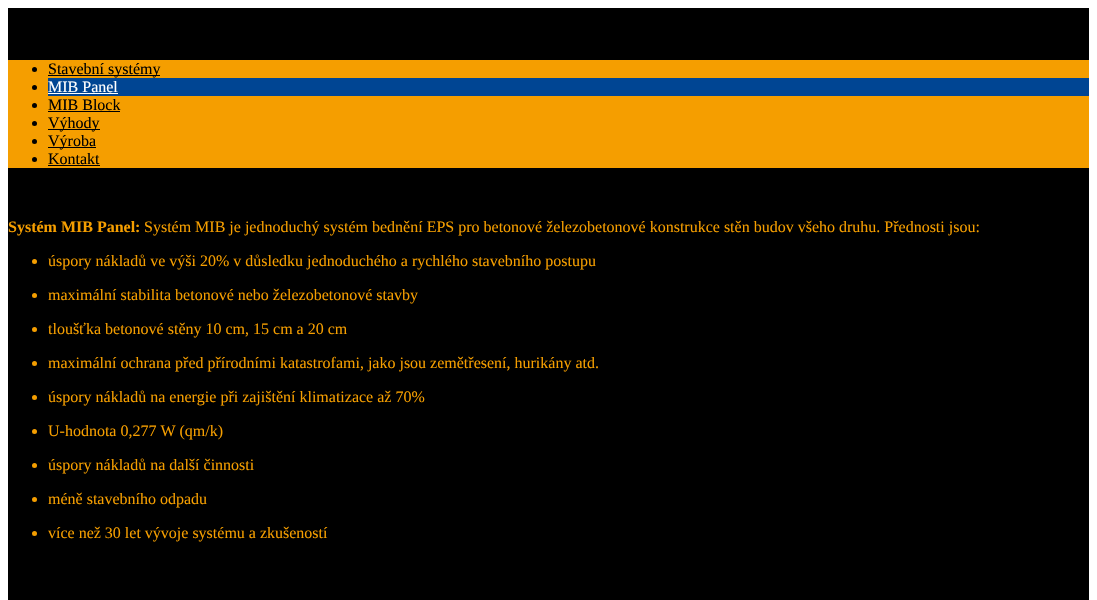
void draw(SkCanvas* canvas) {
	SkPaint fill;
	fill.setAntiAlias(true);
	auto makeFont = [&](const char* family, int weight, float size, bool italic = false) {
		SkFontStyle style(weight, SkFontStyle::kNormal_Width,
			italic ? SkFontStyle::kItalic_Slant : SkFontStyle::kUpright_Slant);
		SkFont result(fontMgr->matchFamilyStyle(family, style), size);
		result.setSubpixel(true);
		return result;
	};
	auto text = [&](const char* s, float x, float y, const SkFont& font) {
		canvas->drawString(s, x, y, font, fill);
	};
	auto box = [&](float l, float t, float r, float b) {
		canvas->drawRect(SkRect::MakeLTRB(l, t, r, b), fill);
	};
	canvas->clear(0xFFFFFFFF);
	fill.setColor(0xFF000000);
	box(8, 8, 1089, 600);
	fill.setColor(0xFFF59E00);
	box(8, 60, 1089, 168);
	fill.setColor(0xFF000000);
	canvas->drawCircle(34.5f, 69.5f, 2.5f, fill);
	box(48, 75, 160, 76);
	fill.setColor(0xFF004593);
	box(48, 78, 1089, 96);
	fill.setColor(0xFF000000);
	canvas->drawCircle(34.5f, 87.5f, 2.5f, fill);
	fill.setColor(0xFFFFFFFF);
	box(48, 93, 118, 94);
	fill.setColor(0xFF000000);
	canvas->drawCircle(34.5f, 105.5f, 2.5f, fill);
	box(48, 111, 120, 112);
	canvas->drawCircle(34.5f, 123.5f, 2.5f, fill);
	box(48, 129, 100, 130);
	canvas->drawCircle(34.5f, 141.5f, 2.5f, fill);
	box(48, 147, 96, 148);
	canvas->drawCircle(34.5f, 159.5f, 2.5f, fill);
	box(48, 165, 100, 166);
	fill.setColor(0xFFF59E00);
	canvas->drawCircle(34.5f, 261.5f, 2.5f, fill);
	canvas->drawCircle(34.5f, 295.5f, 2.5f, fill);
	canvas->drawCircle(34.5f, 329.5f, 2.5f, fill);
	canvas->drawCircle(34.5f, 363.5f, 2.5f, fill);
	canvas->drawCircle(34.5f, 397.5f, 2.5f, fill);
	canvas->drawCircle(34.5f, 431.5f, 2.5f, fill);
	canvas->drawCircle(34.5f, 465.5f, 2.5f, fill);
	canvas->drawCircle(34.5f, 499.5f, 2.5f, fill);
	canvas->drawCircle(34.5f, 533.5f, 2.5f, fill);
	auto font1 = makeFont("Liberation Serif", 400, 16);
	fill.setColor(0xFF000000);
	text("Stavební systémy", 48, 74, font1);
	fill.setColor(0xFFFFFFFF);
	text("MIB Panel", 48, 92, font1);
	fill.setColor(0xFF000000);
	text("MIB Block", 48, 110, font1);
	text("Výhody", 48, 128, font1);
	text("Výroba", 48, 146, font1);
	text("Kontakt", 48, 164, font1);
	auto font2 = makeFont("Liberation Serif", 700, 16);
	fill.setColor(0xFFF59E00);
	text("Systém MIB Panel:", 8, 232, font2);
	text("Systém MIB je jednoduchý systém bednění EPS pro betonové železobetonové konstrukce stěn budov všeho druhu. Přednosti jsou:", 144, 232, font1);
	text("úspory nákladů ve výši 20% v důsledku jednoduchého a rychlého stavebního postupu", 48, 266, font1);
	text("maximální stabilita betonové nebo železobetonové stavby", 48, 300, font1);
	text("tloušťka betonové stěny 10 cm, 15 cm a 20 cm", 48, 334, font1);
	text("maximální ochrana před přírodními katastrofami, jako jsou zemětřesení, hurikány atd.", 48, 368, font1);
	text("úspory nákladů na energie při zajištění klimatizace až 70%", 48, 402, font1);
	text("U-hodnota 0,277 W (qm/k)", 48, 436, font1);
	text("úspory nákladů na další činnosti", 48, 470, font1);
	text("méně stavebního odpadu", 48, 504, font1);
	text("více než 30 let vývoje systému a zkušeností", 48, 538, font1);
}
